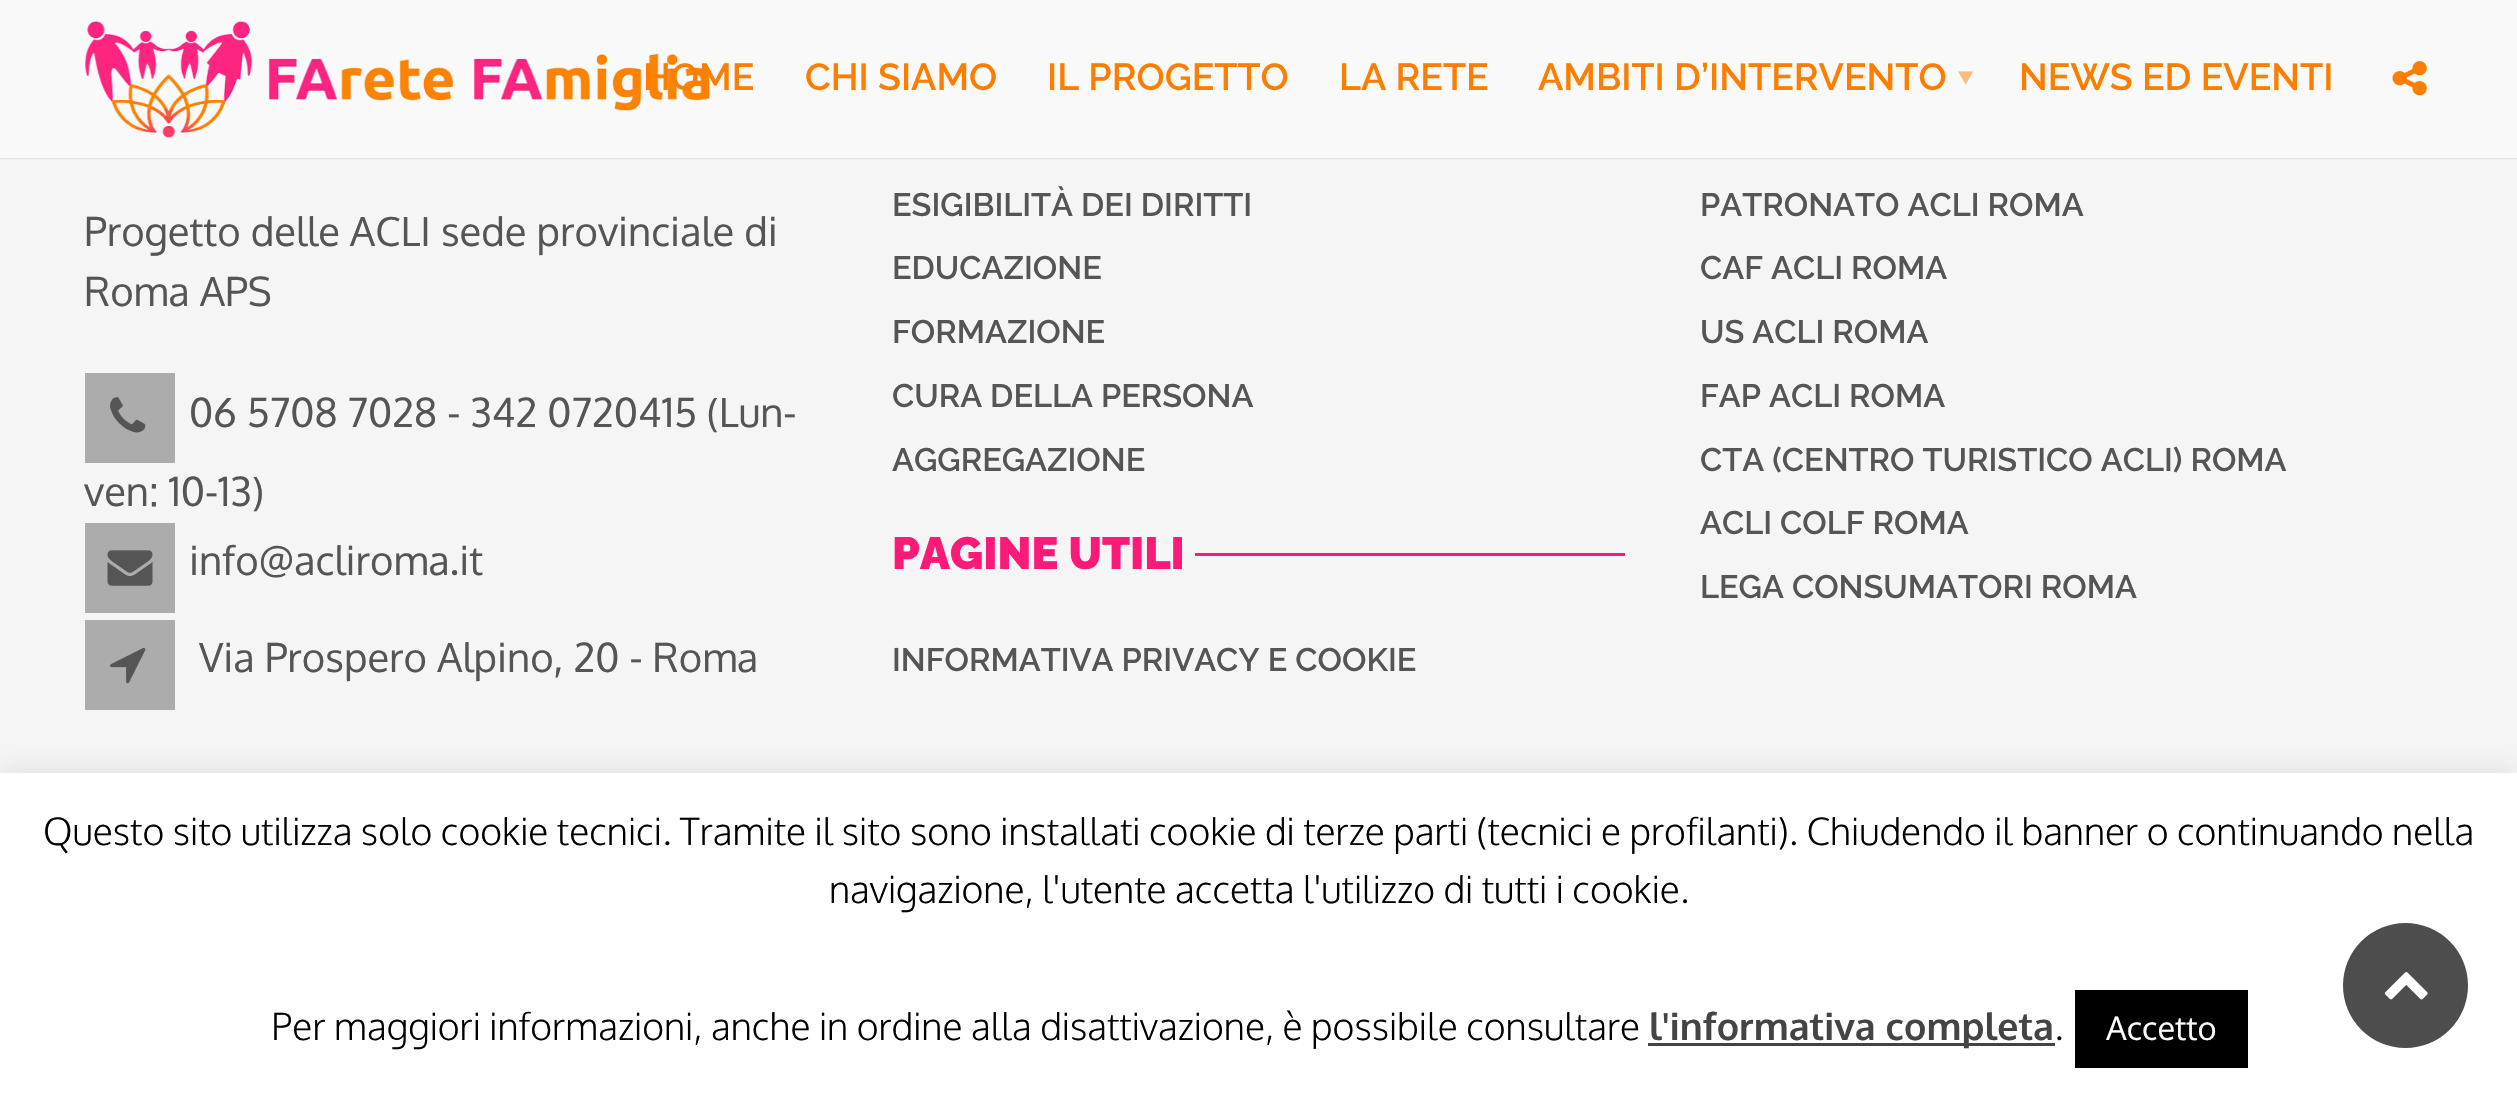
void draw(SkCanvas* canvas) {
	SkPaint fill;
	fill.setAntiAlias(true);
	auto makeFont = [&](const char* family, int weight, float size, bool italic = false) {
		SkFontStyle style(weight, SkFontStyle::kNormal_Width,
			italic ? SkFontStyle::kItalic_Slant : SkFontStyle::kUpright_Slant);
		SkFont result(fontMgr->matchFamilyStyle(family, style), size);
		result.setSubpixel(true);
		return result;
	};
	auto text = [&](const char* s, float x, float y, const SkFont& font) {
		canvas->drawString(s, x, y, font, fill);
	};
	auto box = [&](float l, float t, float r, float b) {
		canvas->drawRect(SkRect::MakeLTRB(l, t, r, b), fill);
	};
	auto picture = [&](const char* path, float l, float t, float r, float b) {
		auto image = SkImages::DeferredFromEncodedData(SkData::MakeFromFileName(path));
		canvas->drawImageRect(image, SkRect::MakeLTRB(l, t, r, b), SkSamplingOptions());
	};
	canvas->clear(0xFFF5F5F5);
	fill.setColor(0x33000000);
	fill.setMaskFilter(SkMaskFilter::MakeBlur(kNormal_SkBlurStyle, 1));
	canvas->drawRect(SkRect::MakeLTRB(0, 0, 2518, 158), fill);
	fill.setMaskFilter(nullptr);
	fill.setColor(0xFFF9F9F9);
	box(0, 0, 2517, 158);
	picture("image0.png", 84, 21, 710, 138);
	picture("image1.png", 2392, 61, 2427, 96);
	fill.setColor(0xFFACACAC);
	box(85, 373, 175, 463);
	picture("image2.png", 110, 397, 146, 433);
	box(85, 523, 175, 613);
	picture("image3.png", 107, 550, 153, 586);
	box(85, 620, 175, 710);
	picture("image4.png", 110, 647, 146, 684);
	fill.setColor(0xFFFC1A78);
	box(1195, 553, 1625, 556);
	fill.setColor(0x4DACABAB);
	fill.setMaskFilter(SkMaskFilter::MakeBlur(kNormal_SkBlurStyle, 12.5f));
	canvas->drawRect(SkRect::MakeLTRB(0, 770, 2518, 1095), fill);
	fill.setMaskFilter(nullptr);
	fill.setColor(0xFFFFFFFF);
	box(0, 773, 2517, 1097);
	fill.setColor(0xFF444444);
	box(1648, 1043, 2055, 1046);
	fill.setColor(0xFF000000);
	box(2075, 990, 2248, 1068);
	fill.setColor(0xFF4D4D4D);
	canvas->drawCircle(2405.5f, 985.5f, 62.5f, fill);
	picture("image5.png", 2384, 972, 2428, 1000);
	auto font1 = makeFont("Raleway", 600, 37.5f);
	fill.setColor(0xFFFB7E00);
	text("HOME", 643, 90, font1);
	text("CHI SIAMO", 805, 90, font1);
	text("IL PROGETTO", 1047, 90, font1);
	text("LA RETE", 1339, 90, font1);
	text("AMBITI D’INTERVENTO", 1538, 90, font1);
	auto font2 = makeFont("Noto Sans", 400, 50);
	fill.setColor(0xFFFABC7D);
	canvas->save();
	canvas->rotate(90, 1947, 68);
	text("‣", 1947, 68, font2);
	canvas->restore();
	fill.setColor(0xFFFB7E00);
	text("NEWS ED EVENTI", 2019, 90, font1);
	auto font3 = makeFont("Oxygen", 400, 40);
	fill.setColor(0xFF555555);
	text("Progetto delle ACLI sede provinciale di", 84, 246, font3);
	text("Roma APS", 84, 306, font3);
	text("06 5708 7028 - 342 0720415 (Lun-", 189, 427, font3);
	text("ven: 10-13)", 84, 506, font3);
	text("info@acliroma.it", 189, 575, font3);
	text("Via Prospero Alpino, 20 - Roma", 199, 672, font3);
	auto font4 = makeFont("Raleway", 600, 32.5f);
	text("ESIGIBILITÀ DEI DIRITTI", 892, 216, font4);
	text("EDUCAZIONE", 892, 279, font4);
	text("FORMAZIONE", 892, 343, font4);
	text("CURA DELLA PERSONA", 892, 407, font4);
	text("AGGREGAZIONE", 892, 471, font4);
	auto font5 = makeFont("Raleway", 900, 45);
	fill.setColor(0xFFFC1A78);
	text("PAGINE UTILI", 892, 569, font5);
	fill.setColor(0xFF555555);
	text("INFORMATIVA PRIVACY E COOKIE", 892, 671, font4);
	text("PATRONATO ACLI ROMA", 1700, 216, font4);
	text("CAF ACLI ROMA", 1700, 279, font4);
	text("US ACLI ROMA", 1700, 343, font4);
	text("FAP ACLI ROMA", 1700, 407, font4);
	text("CTA (CENTRO TURISTICO ACLI) ROMA", 1700, 471, font4);
	text("ACLI COLF ROMA", 1700, 534, font4);
	text("LEGA CONSUMATORI ROMA", 1700, 598, font4);
	auto font6 = makeFont("Oxygen", 300, 37.5f);
	fill.setColor(0xFF000000);
	text("Questo sito utilizza solo cookie tecnici. Tramite il sito sono installati cookie di terze parti (tecnici e profilanti). Chiudendo il banner o continuando nella", 43, 845, font6);
	text("navigazione, l'utente accetta l'utilizzo di tutti i cookie.", 829, 903, font6);
	text("Per maggiori informazioni, anche in ordine alla disattivazione, è possibile consultare", 271, 1040, font6);
	auto font7 = makeFont("Oxygen", 700, 37.5f);
	fill.setColor(0xFF444444);
	text("l'informativa completa", 1649, 1040, font7);
	fill.setColor(0xFF000000);
	text(".", 2054, 1040, font6);
	auto font8 = makeFont("Oxygen", 400, 32.5f);
	fill.setColor(0xFFFFFFFF);
	text("Accetto", 2106, 1040, font8);
}
